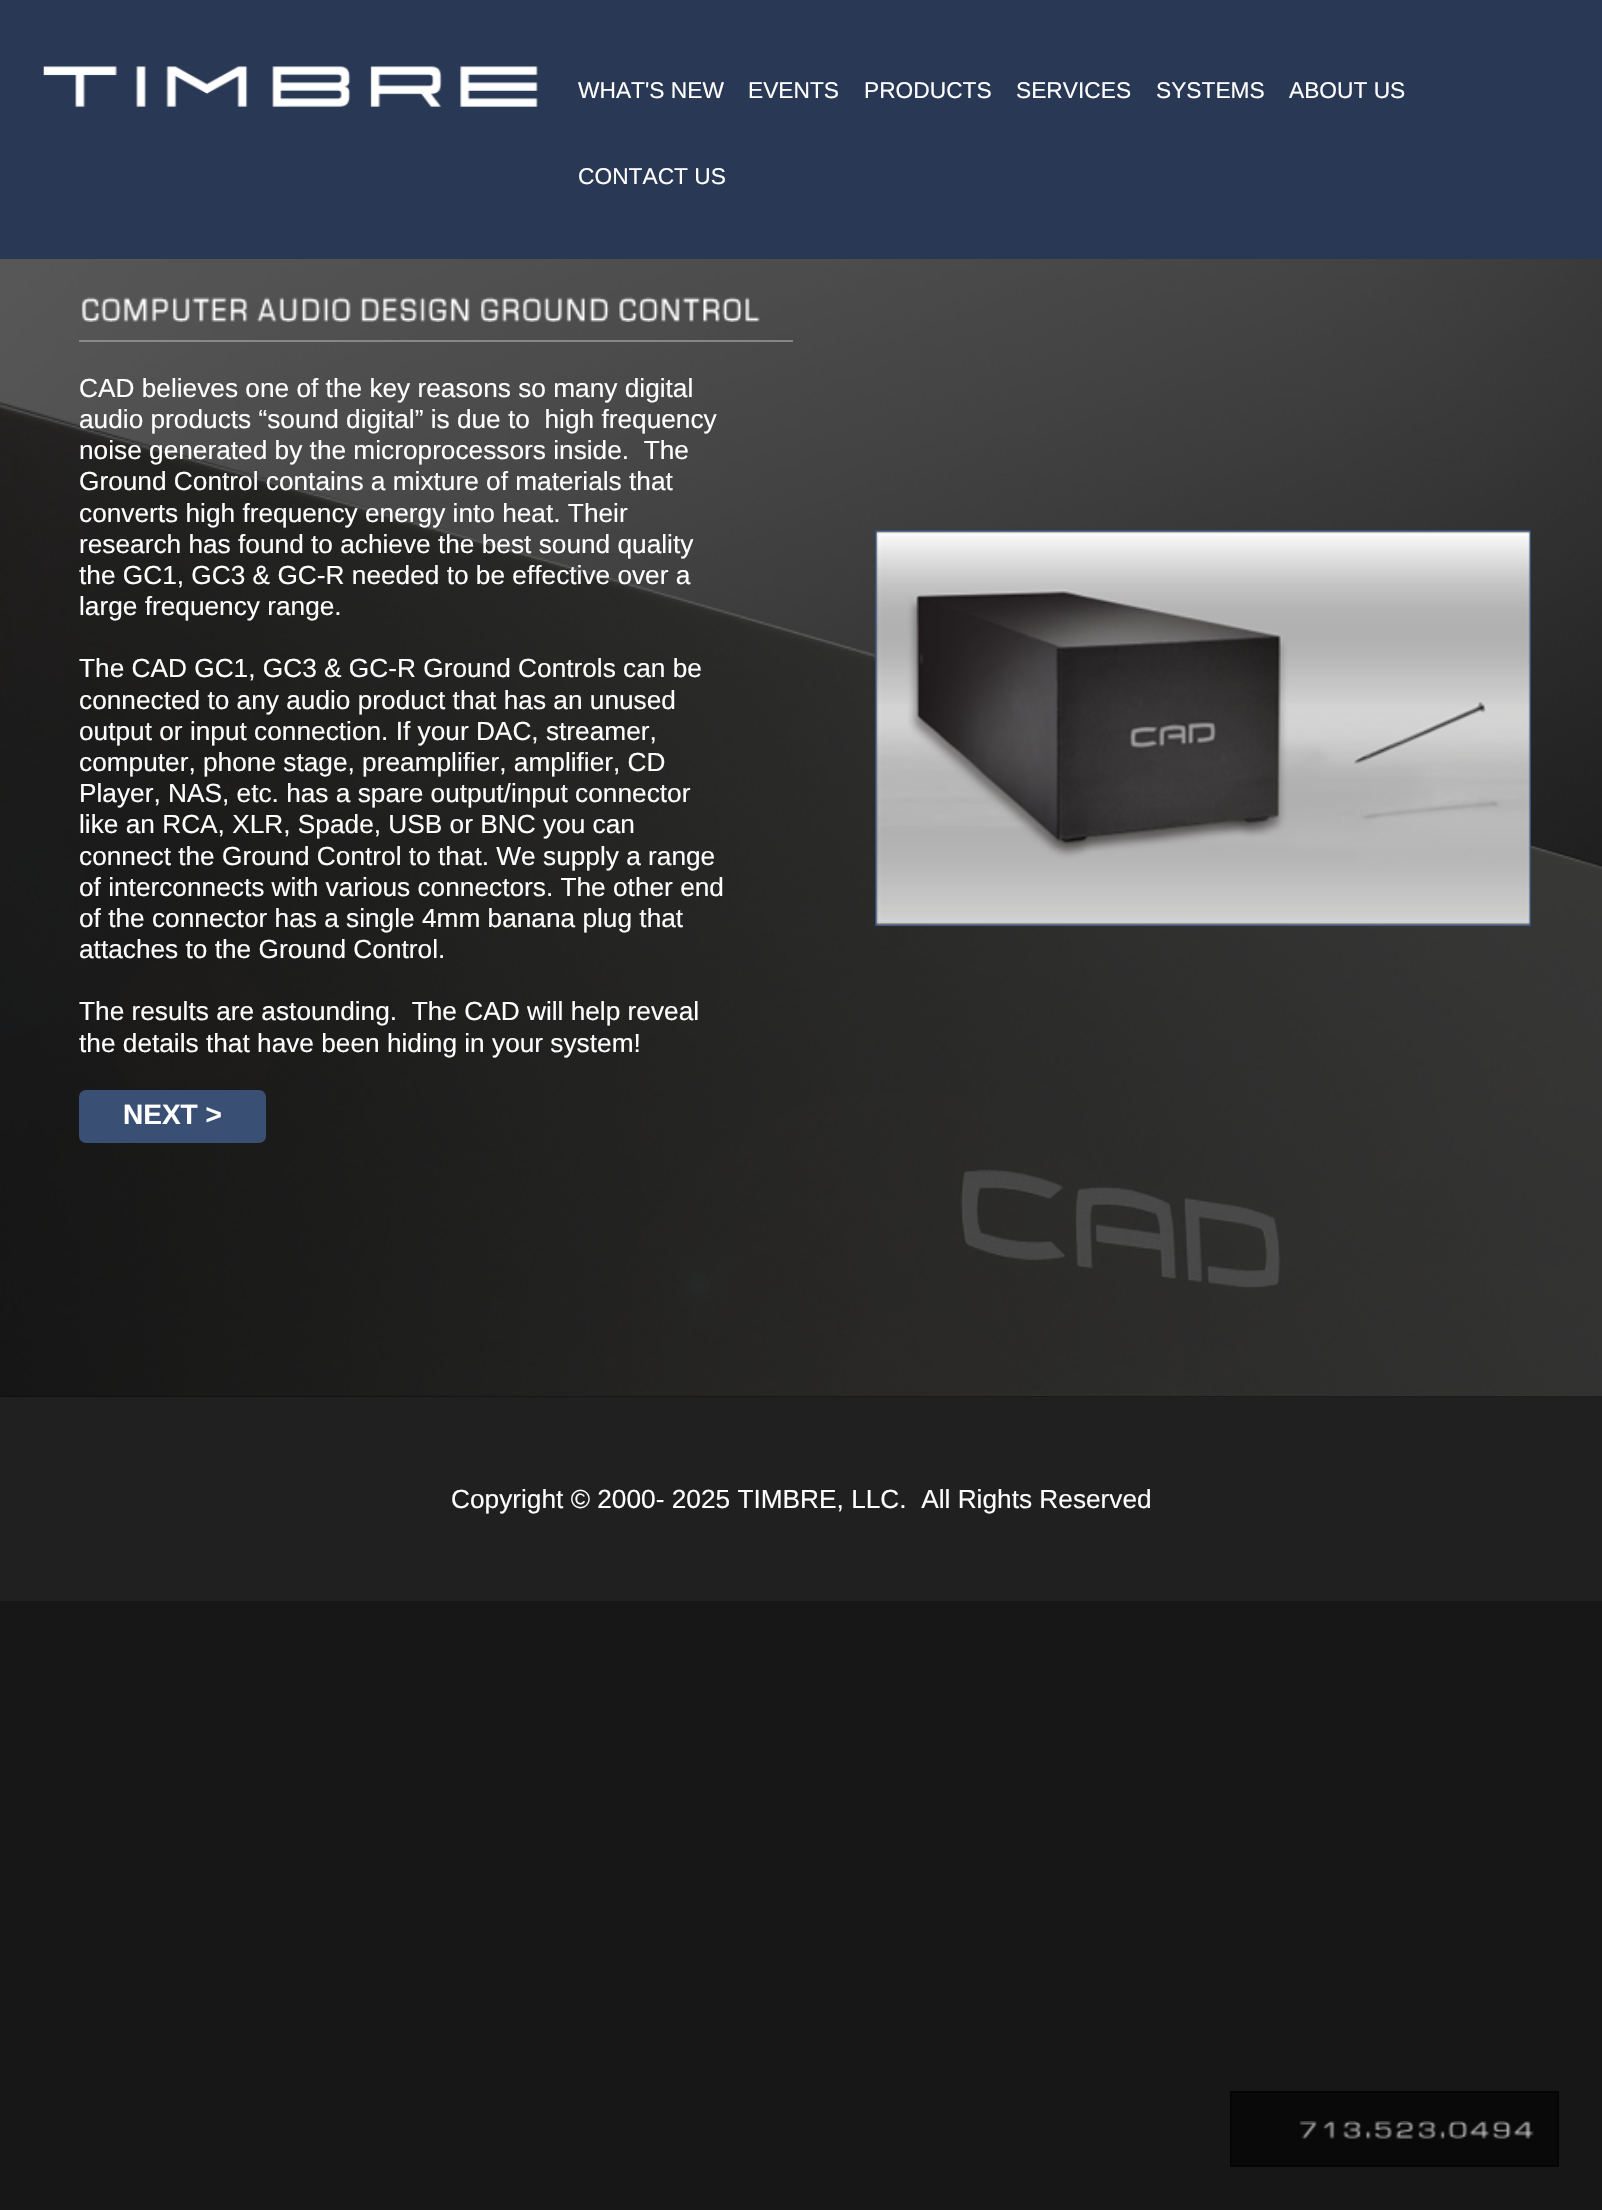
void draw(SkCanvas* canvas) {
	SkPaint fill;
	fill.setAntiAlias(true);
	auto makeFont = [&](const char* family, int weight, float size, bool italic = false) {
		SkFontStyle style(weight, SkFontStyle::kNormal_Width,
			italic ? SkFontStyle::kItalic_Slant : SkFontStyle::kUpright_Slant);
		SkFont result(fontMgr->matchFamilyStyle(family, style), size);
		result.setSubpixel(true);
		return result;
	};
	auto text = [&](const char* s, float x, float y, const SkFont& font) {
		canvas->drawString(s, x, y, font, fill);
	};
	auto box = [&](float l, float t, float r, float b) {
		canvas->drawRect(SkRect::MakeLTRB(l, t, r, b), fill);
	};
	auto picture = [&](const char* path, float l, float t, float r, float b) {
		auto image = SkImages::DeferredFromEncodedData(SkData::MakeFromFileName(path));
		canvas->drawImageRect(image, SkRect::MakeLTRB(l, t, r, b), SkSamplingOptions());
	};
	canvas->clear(0xFF171717);
	fill.setColor(0xFF090909);
	box(0, 1396, 1602, 1397);
	fill.setColor(0xFF293854);
	box(0, 0, 1602, 259);
	picture("image0.png", 43, 66, 538, 107);
	picture("image1.png", 0, 259, 1602, 1397);
	picture("image2.png", 81, 297, 760, 322);
	fill.setColor(0xB0A0A0A0);
	box(79, 340, 793, 342);
	fill.setColor(0xFF3A4F74);
	canvas->drawRoundRect(SkRect::MakeLTRB(80, 1091, 265, 1142), 6, 6, fill);
	fill.setStyle(SkPaint::kStroke_Style);
	fill.setStrokeWidth(2);
	canvas->drawRoundRect(SkRect::MakeLTRB(80, 1091, 265, 1142), 6, 6, fill);
	canvas->drawRect(SkRect::MakeLTRB(876, 531, 1530, 925), fill);
	picture("image3.png", 876, 531, 1530, 926);
	fill.setStyle(SkPaint::kFill_Style);
	fill.setColor(0xFF202020);
	box(0, 1397, 1602, 1601);
	fill.setColor(0xFF090909);
	canvas->drawRect(SkRect::MakeLTRB(1231, 2092, 1558, 2166), fill);
	fill.setStyle(SkPaint::kStroke_Style);
	fill.setColor(0xFF050505);
	canvas->drawRect(SkRect::MakeLTRB(1231, 2092, 1558, 2166), fill);
	picture("image4.png", 1299, 2121, 1534, 2139);
	auto font1 = makeFont("Liberation Sans", 400, 22.75f);
	fill.setStyle(SkPaint::kFill_Style);
	fill.setColor(0xFFFFFFFF);
	text("WHAT'S NEW", 578, 98, font1);
	text("EVENTS", 748, 98, font1);
	text("PRODUCTS", 864, 98, font1);
	text("SERVICES", 1016, 98, font1);
	text("SYSTEMS", 1156, 98, font1);
	text("ABOUT US", 1289, 98, font1);
	text("CONTACT US", 578, 184, font1);
	auto font2 = makeFont("Liberation Sans", 400, 26.25f);
	text("CAD believes one of the key reasons so many digital", 79, 397, font2);
	text("audio products “sound digital” is due to  high frequency", 79, 428, font2);
	text("noise generated by the microprocessors inside.  The", 79, 459, font2);
	text("Ground Control contains a mixture of materials that", 79, 490, font2);
	text("converts high frequency energy into heat. Their", 79, 522, font2);
	text("research has found to achieve the best sound quality", 79, 553, font2);
	text("the GC1, GC3 & GC-R needed to be effective over a", 79, 584, font2);
	text("large frequency range.", 79, 615, font2);
	text("The CAD GC1, GC3 & GC-R Ground Controls can be", 79, 677, font2);
	text("connected to any audio product that has an unused", 79, 709, font2);
	text("output or input connection. If your DAC, streamer,", 79, 740, font2);
	text("computer, phone stage, preamplifier, amplifier, CD", 79, 771, font2);
	text("Player, NAS, etc. has a spare output/input connector", 79, 802, font2);
	text("like an RCA, XLR, Spade, USB or BNC you can", 79, 833, font2);
	text("connect the Ground Control to that. We supply a range", 79, 865, font2);
	text("of interconnects with various connectors. The other end", 79, 896, font2);
	text("of the connector has a single 4mm banana plug that", 79, 927, font2);
	text("attaches to the Ground Control.", 79, 958, font2);
	text("The results are astounding.  The CAD will help reveal", 79, 1020, font2);
	text("the details that have been hiding in your system!", 79, 1052, font2);
	auto font3 = makeFont("Liberation Sans", 700, 28);
	text("NEXT >", 123, 1124, font3);
	text("Copyright © 2000- 2025 TIMBRE, LLC.  All Rights Reserved", 451, 1508, font2);
}
